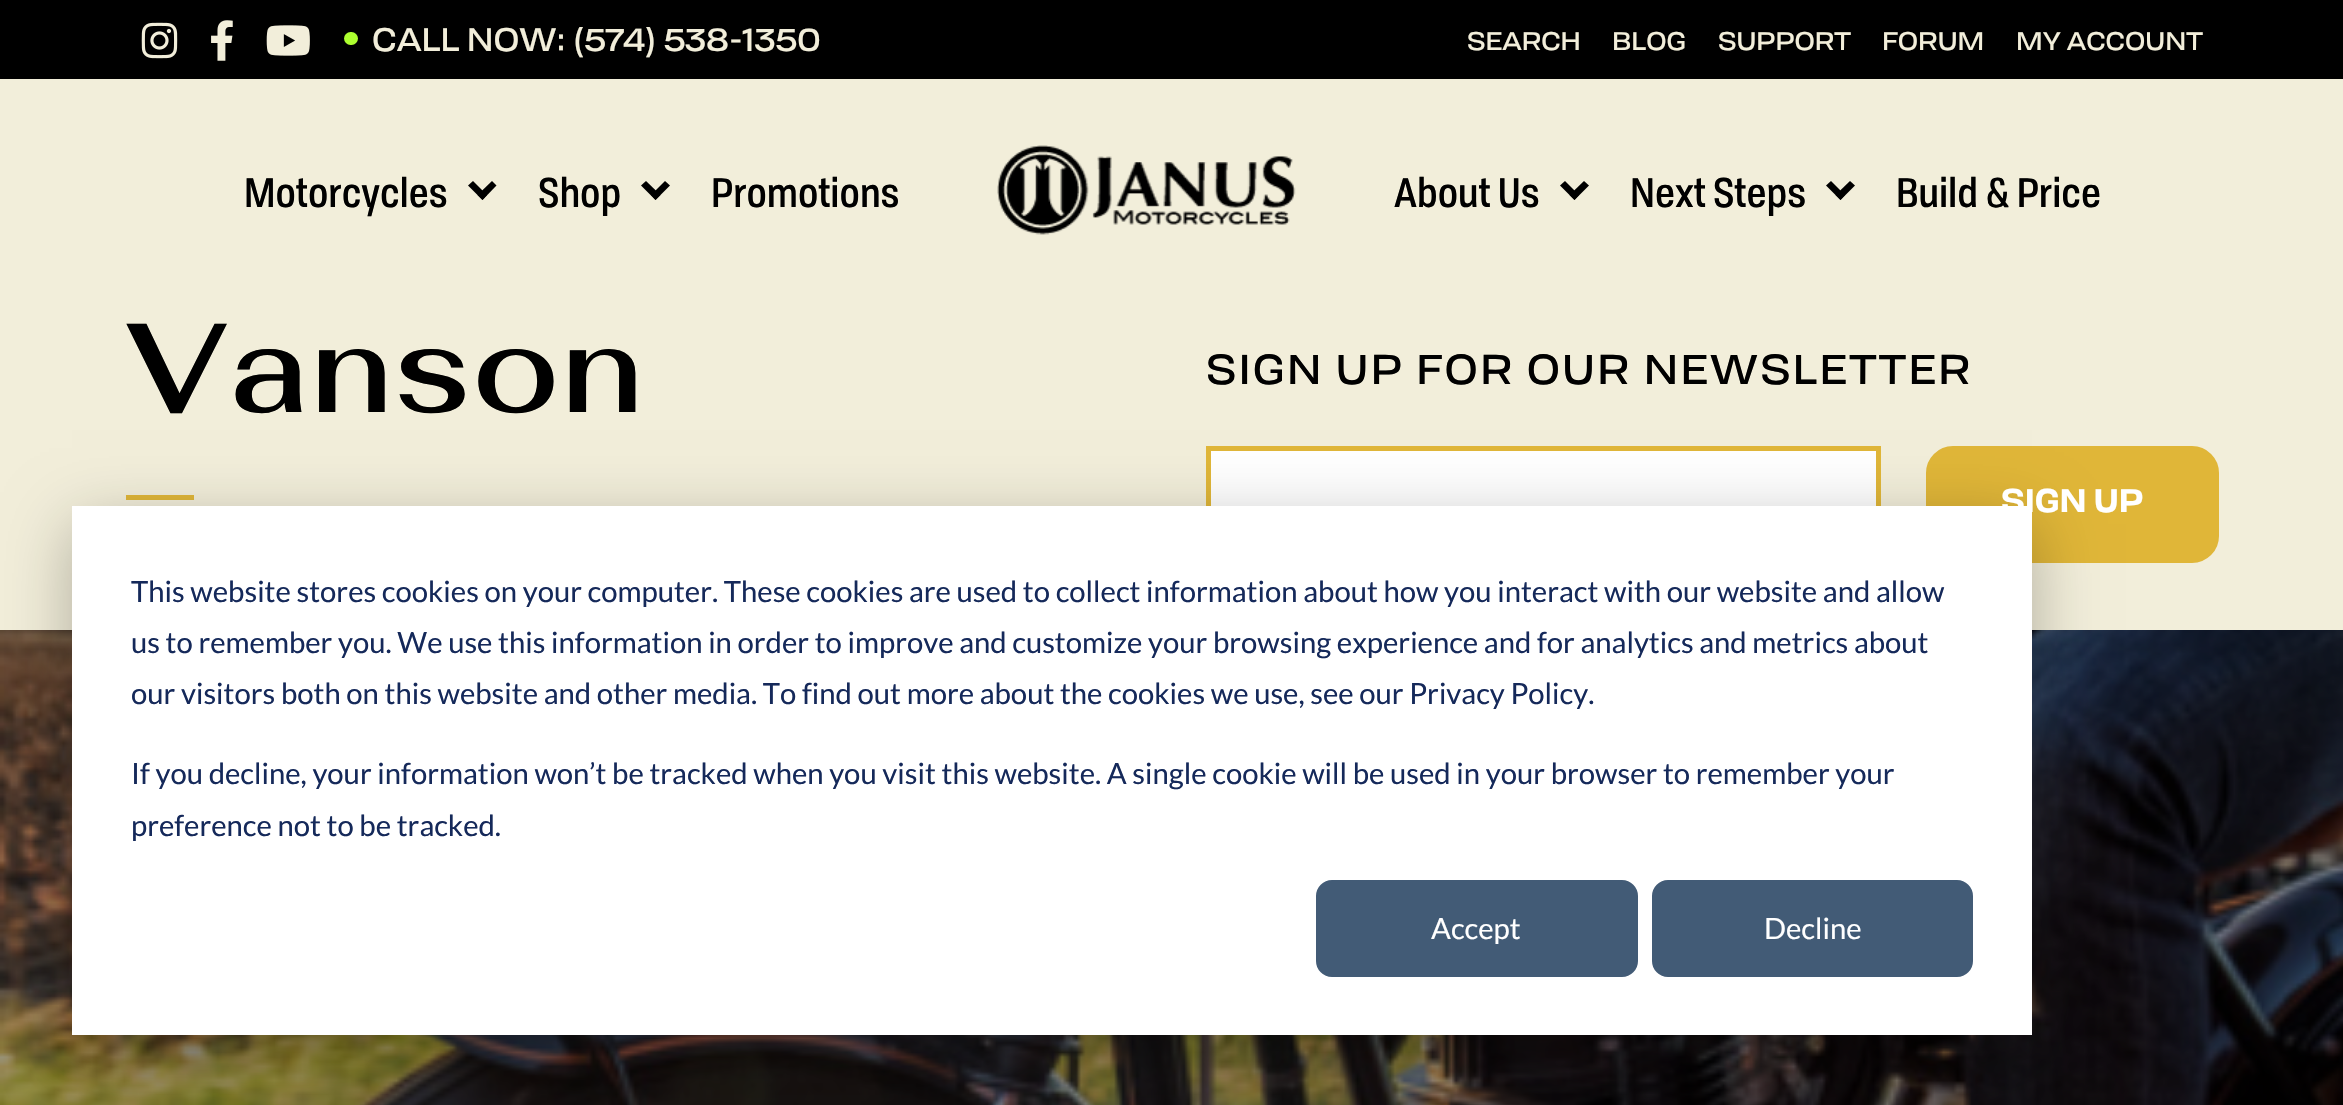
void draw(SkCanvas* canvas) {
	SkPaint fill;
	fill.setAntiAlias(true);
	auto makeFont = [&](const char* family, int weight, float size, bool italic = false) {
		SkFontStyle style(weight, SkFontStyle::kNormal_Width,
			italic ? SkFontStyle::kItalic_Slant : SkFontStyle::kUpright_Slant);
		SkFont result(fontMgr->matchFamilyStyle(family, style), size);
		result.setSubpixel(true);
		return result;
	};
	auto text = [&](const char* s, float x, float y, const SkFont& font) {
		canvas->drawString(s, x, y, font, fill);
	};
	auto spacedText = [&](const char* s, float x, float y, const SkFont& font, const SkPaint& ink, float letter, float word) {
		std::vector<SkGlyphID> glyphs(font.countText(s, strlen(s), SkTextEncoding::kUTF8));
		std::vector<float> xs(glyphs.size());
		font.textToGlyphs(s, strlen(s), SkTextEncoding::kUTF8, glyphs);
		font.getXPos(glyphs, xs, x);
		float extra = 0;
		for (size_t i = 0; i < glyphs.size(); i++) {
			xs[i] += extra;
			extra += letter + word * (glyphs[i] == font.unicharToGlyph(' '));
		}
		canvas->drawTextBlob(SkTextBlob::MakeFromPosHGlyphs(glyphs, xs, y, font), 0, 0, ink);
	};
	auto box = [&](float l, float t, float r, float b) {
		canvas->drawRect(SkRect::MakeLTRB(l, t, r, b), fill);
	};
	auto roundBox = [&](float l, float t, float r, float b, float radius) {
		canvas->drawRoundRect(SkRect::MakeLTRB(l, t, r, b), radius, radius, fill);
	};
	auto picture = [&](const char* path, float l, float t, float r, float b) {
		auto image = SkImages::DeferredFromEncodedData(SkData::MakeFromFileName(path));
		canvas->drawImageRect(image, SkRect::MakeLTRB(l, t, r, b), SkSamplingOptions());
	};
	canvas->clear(0xFFF2EEDA);
	fill.setColor(0xFF000000);
	box(0, 0, 2343, 79);
	picture("image0.png", 141, 22, 178, 59);
	picture("image1.png", 211, 20, 233, 61);
	picture("image2.png", 266, 25, 310, 56);
	fill.setColor(0xFFADFF2F);
	roundBox(344, 32, 358, 45, 6.5f);
	fill.setColor(0xFF000000);
	canvas->drawPath(SkPathBuilder().moveTo(492, 181).lineTo(496.5f, 185.5f).lineTo(482.5f, 200).lineTo(477.5f, 195).close().detach(), fill);
	canvas->drawPath(SkPathBuilder().moveTo(473, 181).lineTo(487, 195).lineTo(482.5f, 200).lineTo(468, 185.5f).close().detach(), fill);
	canvas->drawPath(SkPathBuilder().moveTo(665, 181).lineTo(670, 185.5f).lineTo(655.5f, 200).lineTo(651, 195).close().detach(), fill);
	canvas->drawPath(SkPathBuilder().moveTo(646, 181).lineTo(660.5f, 195).lineTo(655.5f, 200).lineTo(641, 185.5f).close().detach(), fill);
	picture("image3.png", 997, 145, 1296, 235);
	canvas->drawPath(SkPathBuilder().moveTo(1584, 181).lineTo(1589, 185.5f).lineTo(1574.5f, 200).lineTo(1569.5f, 195).close().detach(), fill);
	canvas->drawPath(SkPathBuilder().moveTo(1565, 181).lineTo(1579, 195).lineTo(1574.5f, 200).lineTo(1560, 185.5f).close().detach(), fill);
	canvas->drawPath(SkPathBuilder().moveTo(1850, 181).lineTo(1855, 185.5f).lineTo(1840.5f, 200).lineTo(1835.5f, 195).close().detach(), fill);
	canvas->drawPath(SkPathBuilder().moveTo(1831, 181).lineTo(1845, 195).lineTo(1840.5f, 200).lineTo(1826, 185.5f).close().detach(), fill);
	fill.setColor(0xFFE0B638);
	box(126, 495, 194, 500);
	fill.setColor(0xFFFFFFFF);
	box(1211, 451, 1876, 506);
	fill.setStyle(SkPaint::kStroke_Style);
	fill.setStrokeWidth(5);
	fill.setColor(0xFFE0B638);
	canvas->drawRect(SkRect::MakeLTRB(1208.5f, 448.5f, 1878.5f, 560.5f), fill);
	fill.setStyle(SkPaint::kFill_Style);
	canvas->drawRoundRect(SkRect::MakeLTRB(1930.5f, 450.5f, 2214.5f, 558.5f), 22.5f, 22.5f, fill);
	fill.setStyle(SkPaint::kStroke_Style);
	fill.setStrokeWidth(9);
	canvas->drawRoundRect(SkRect::MakeLTRB(1930.5f, 450.5f, 2214.5f, 558.5f), 22.5f, 22.5f, fill);
	picture("image4.png", 0, 630, 2343, 1105);
	fill.setStyle(SkPaint::kFill_Style);
	fill.setColor(0x47000000);
	fill.setMaskFilter(SkMaskFilter::MakeBlur(kNormal_SkBlurStyle, 31.5f));
	canvas->drawRect(SkRect::MakeLTRB(72, 524, 2032, 1053), fill);
	fill.setMaskFilter(nullptr);
	fill.setColor(0xFFFFFFFF);
	box(72, 506, 2032, 1035);
	fill.setColor(0xFF425B76);
	canvas->drawRoundRect(SkRect::MakeLTRB(1317, 881, 1637, 976), 15, 15, fill);
	fill.setStyle(SkPaint::kStroke_Style);
	fill.setStrokeWidth(2);
	canvas->drawRoundRect(SkRect::MakeLTRB(1317, 881, 1637, 976), 15, 15, fill);
	fill.setStyle(SkPaint::kFill_Style);
	canvas->drawRoundRect(SkRect::MakeLTRB(1653, 881, 1972, 976), 15, 15, fill);
	fill.setStyle(SkPaint::kStroke_Style);
	canvas->drawRoundRect(SkRect::MakeLTRB(1653, 881, 1972, 976), 15, 15, fill);
	auto font1 = makeFont("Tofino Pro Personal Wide", 500, 31.5f);
	fill.setStyle(SkPaint::kFill_Style);
	fill.setColor(0xFFF2EEDA);
	text("CALL NOW: (574) 538-1350", 372, 51, font1);
	auto font2 = makeFont("Tofino Pro Personal Wide", 500, 24.75f);
	text("SEARCH", 1467, 50, font2);
	text("BLOG", 1612, 50, font2);
	text("SUPPORT", 1718, 50, font2);
	text("FORUM", 1882, 50, font2);
	text("MY ACCOUNT", 2016, 50, font2);
	auto font3 = makeFont("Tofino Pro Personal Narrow", 500, 40.5f);
	fill.setColor(0xFF000000);
	text("Motorcycles", 244, 207, font3);
	text("Shop", 538, 207, font3);
	text("Promotions", 711, 207, font3);
	text("About Us", 1394, 207, font3);
	text("Next Steps", 1630, 207, font3);
	text("Build & Price", 1896, 207, font3);
	auto font4 = makeFont("Fahkwang", 600, 126);
	spacedText("Vanson", 126, 412, font4, fill, 1.25f, 0);
	auto font5 = makeFont("Tofino Pro Personal Wide", 500, 40.5f);
	spacedText("SIGN UP FOR OUR NEWSLETTER", 1206, 384, font5, fill, 2.4f, 0);
	auto font6 = makeFont("Tofino Pro Personal Wide", 700, 31.5f);
	fill.setColor(0xFFFFFFFF);
	text("SIGN UP", 2001, 512, font6);
	auto font7 = makeFont("Lato", 400, 29.25f);
	fill.setColor(0xFF15295A);
	text("This website stores cookies on your computer. These cookies are used to collect information about how you interact with our website and allow", 131, 602, font7);
	text("us to remember you. We use this information in order to improve and customize your browsing experience and for analytics and metrics about", 131, 653, font7);
	text("our visitors both on this website and other media. To find out more about the cookies we use, see our Privacy Policy.", 131, 704, font7);
	text("If you decline, your information won’t be tracked when you visit this website. A single cookie will be used in your browser to remember your", 131, 784, font7);
	text("preference not to be tracked.", 131, 836, font7);
	fill.setColor(0xFFFFFFFF);
	text("Accept", 1431, 939, font7);
	text("Decline", 1764, 939, font7);
}
